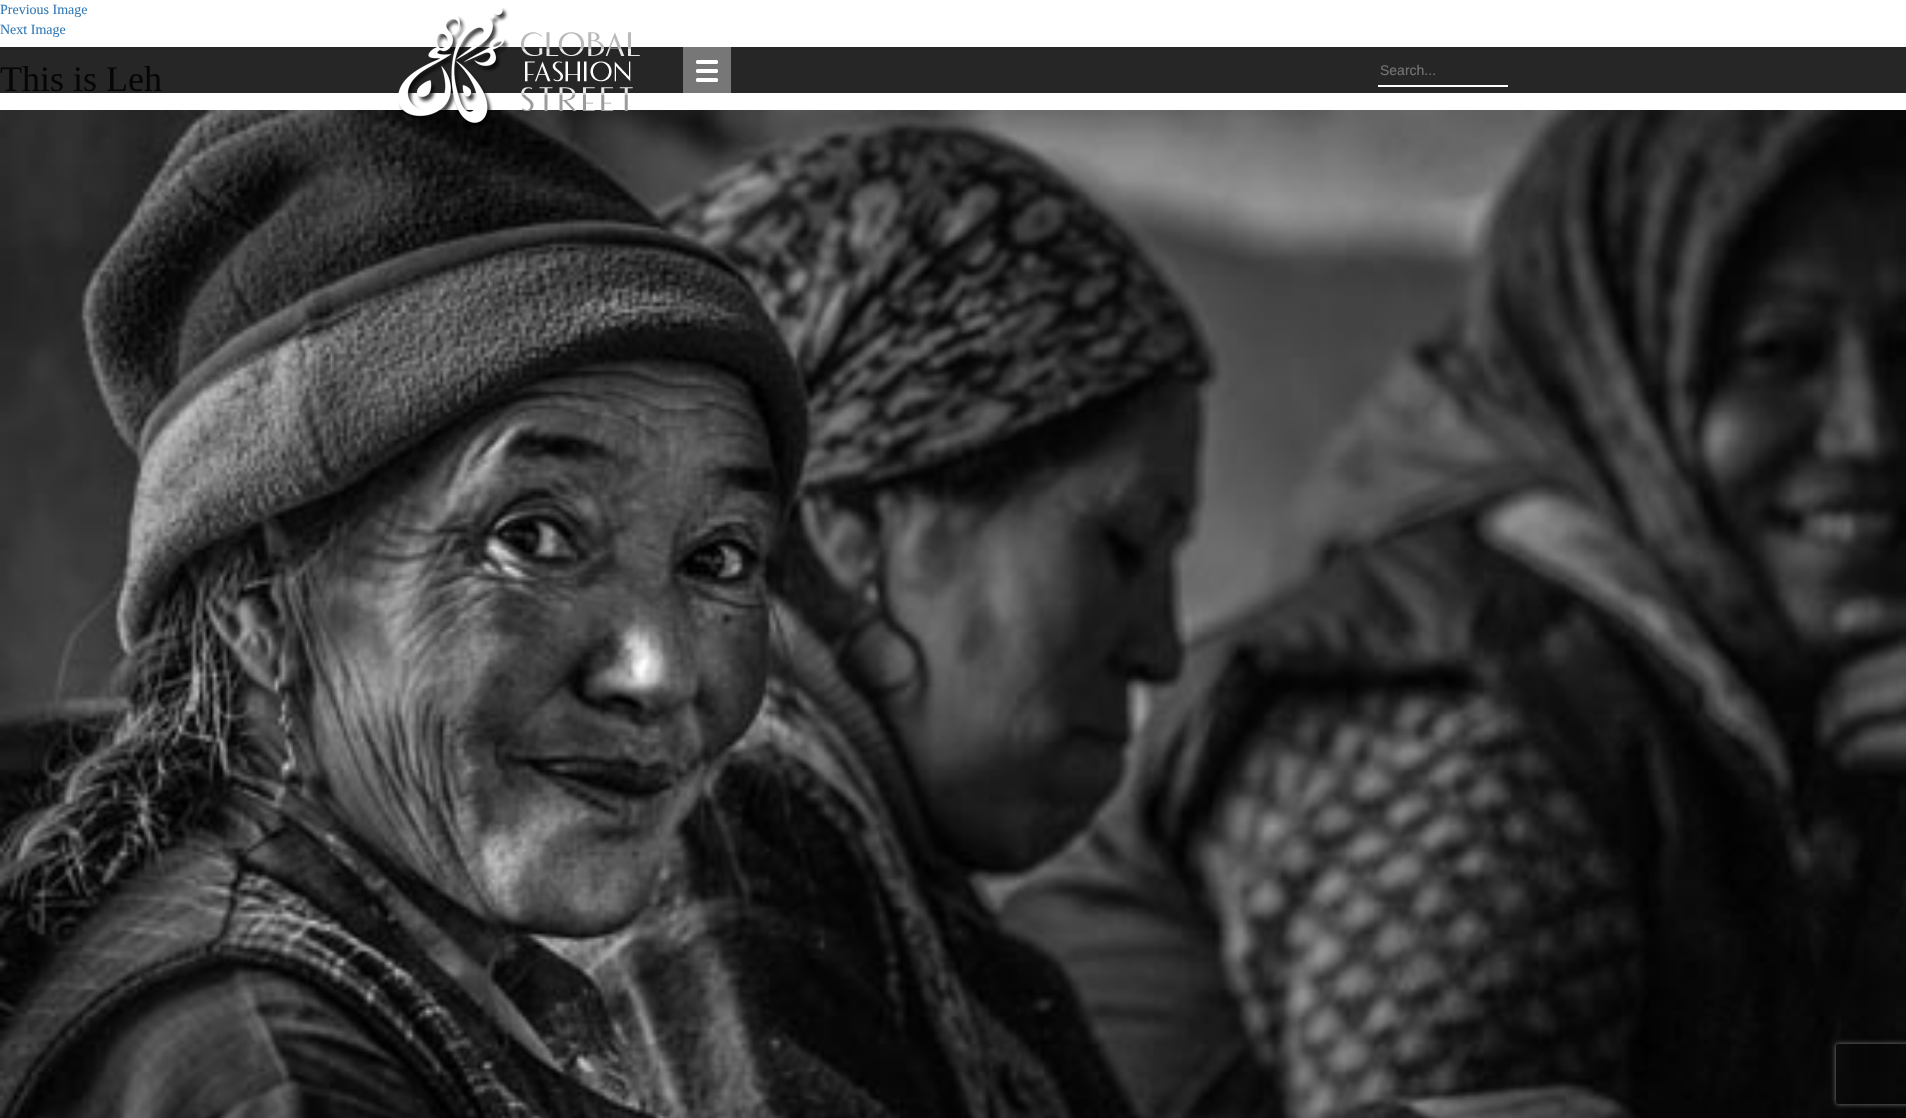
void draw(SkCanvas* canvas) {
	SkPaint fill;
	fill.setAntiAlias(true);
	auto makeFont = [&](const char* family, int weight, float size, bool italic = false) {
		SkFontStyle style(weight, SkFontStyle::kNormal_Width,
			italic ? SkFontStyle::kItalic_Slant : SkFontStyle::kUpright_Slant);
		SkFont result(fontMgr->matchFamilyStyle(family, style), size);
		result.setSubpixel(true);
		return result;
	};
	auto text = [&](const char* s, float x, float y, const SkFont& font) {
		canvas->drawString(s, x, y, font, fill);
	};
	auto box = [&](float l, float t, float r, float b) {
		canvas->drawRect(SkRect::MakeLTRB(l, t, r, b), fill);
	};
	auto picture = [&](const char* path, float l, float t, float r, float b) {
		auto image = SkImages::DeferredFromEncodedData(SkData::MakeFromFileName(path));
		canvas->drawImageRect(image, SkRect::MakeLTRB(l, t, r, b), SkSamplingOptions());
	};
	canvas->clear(0xFFFFFFFF);
	fill.setColor(0xFF262626);
	box(0, 47, 1906, 93);
	picture("image0.png", 0, 110, 1906, 1118);
	picture("image1.png", 398, 7, 640, 126);
	fill.setColor(0xFF777777);
	box(683, 47, 731, 93);
	picture("image2.png", 696, 60, 718, 82);
	fill.setColor(0xFFFFFFFF);
	box(1378, 85, 1508, 87);
	canvas->save();
	canvas->clipPath(SkPathBuilder(SkPathFillType::kEvenOdd).moveTo(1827, 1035).lineTo(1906, 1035).lineTo(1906, 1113).lineTo(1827, 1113).close().moveTo(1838, 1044).lineTo(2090, 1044).cubicTo(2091, 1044, 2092, 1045, 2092, 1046).lineTo(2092, 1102).cubicTo(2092, 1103, 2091, 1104, 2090, 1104).lineTo(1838, 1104).cubicTo(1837, 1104, 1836, 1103, 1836, 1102).lineTo(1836, 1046).cubicTo(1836, 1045, 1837, 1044, 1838, 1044).close().detach(), true);
	fill.setColor(0xFF808080);
	fill.setMaskFilter(SkMaskFilter::MakeBlur(kNormal_SkBlurStyle, 2.5f));
	canvas->drawRoundRect(SkRect::MakeLTRB(1836, 1044, 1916, 1104), 2, 2, fill);
	fill.setMaskFilter(nullptr);
	canvas->restore();
	auto font1 = makeFont("Liberation Serif", 400, 14);
	fill.setColor(0xFF337AB7);
	text("Previous Image", 0, 14, font1);
	text("Next Image", 0, 34, font1);
	auto font2 = makeFont("Liberation Serif", 400, 36);
	fill.setColor(0xFF060606);
	text("This is Leh", 0, 91, font2);
	auto font3 = makeFont("Liberation Sans", 400, 14);
	fill.setColor(0xFF757575);
	text("Search...", 1380, 75, font3);
}
